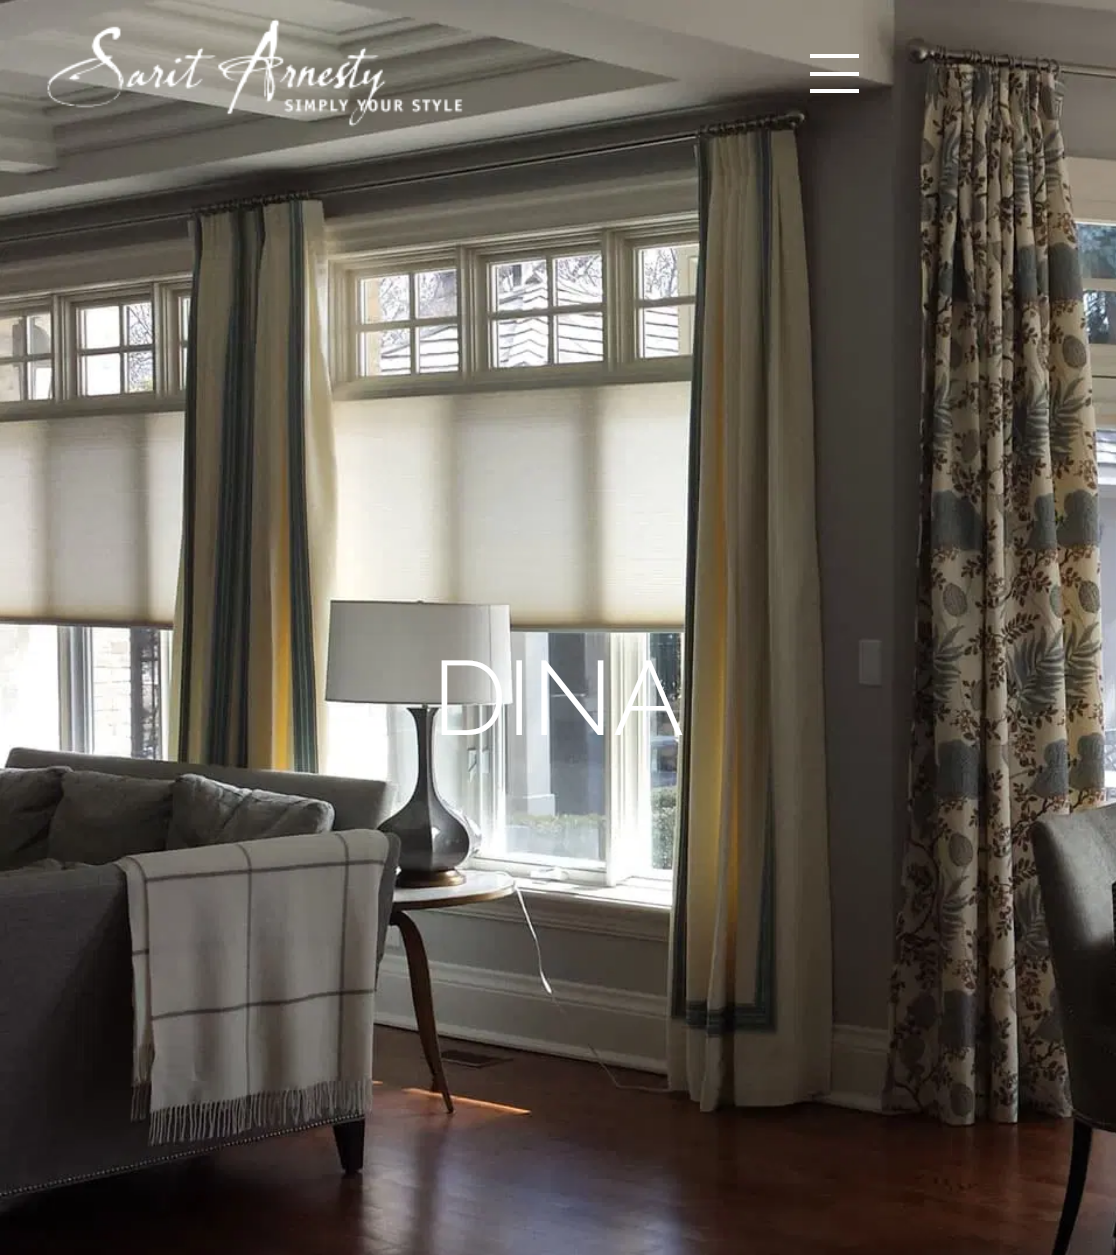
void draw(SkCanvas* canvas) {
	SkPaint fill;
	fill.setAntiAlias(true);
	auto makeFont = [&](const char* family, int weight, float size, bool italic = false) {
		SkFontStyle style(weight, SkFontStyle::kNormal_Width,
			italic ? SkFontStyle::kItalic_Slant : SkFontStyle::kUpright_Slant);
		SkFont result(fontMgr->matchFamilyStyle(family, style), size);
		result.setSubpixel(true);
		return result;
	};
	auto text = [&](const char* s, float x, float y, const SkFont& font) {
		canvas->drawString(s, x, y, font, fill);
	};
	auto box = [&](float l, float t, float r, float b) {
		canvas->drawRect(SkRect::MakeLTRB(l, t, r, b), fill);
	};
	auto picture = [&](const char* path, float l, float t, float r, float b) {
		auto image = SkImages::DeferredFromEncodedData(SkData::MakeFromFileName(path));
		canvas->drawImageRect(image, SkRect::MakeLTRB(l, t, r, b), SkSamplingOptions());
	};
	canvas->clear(0xFFFFFFFF);
	picture("image1.png", 0, 0, 1116, 1255);
	picture("image0.png", 47, 19, 463, 127);
	fill.setColor(0xFFFEFEFE);
	box(810, 72, 859, 76);
	box(810, 54, 859, 58);
	box(810, 89, 859, 93);
	auto font1 = makeFont("Raleway", 300, 105);
	fill.setColor(0xFFFFFFFF);
	text("DINA", 432, 735, font1);
}
